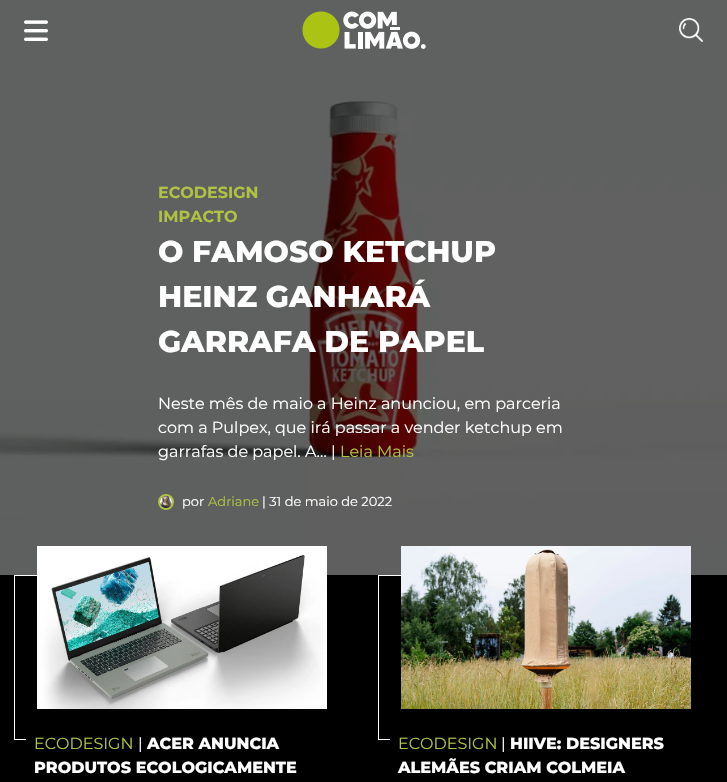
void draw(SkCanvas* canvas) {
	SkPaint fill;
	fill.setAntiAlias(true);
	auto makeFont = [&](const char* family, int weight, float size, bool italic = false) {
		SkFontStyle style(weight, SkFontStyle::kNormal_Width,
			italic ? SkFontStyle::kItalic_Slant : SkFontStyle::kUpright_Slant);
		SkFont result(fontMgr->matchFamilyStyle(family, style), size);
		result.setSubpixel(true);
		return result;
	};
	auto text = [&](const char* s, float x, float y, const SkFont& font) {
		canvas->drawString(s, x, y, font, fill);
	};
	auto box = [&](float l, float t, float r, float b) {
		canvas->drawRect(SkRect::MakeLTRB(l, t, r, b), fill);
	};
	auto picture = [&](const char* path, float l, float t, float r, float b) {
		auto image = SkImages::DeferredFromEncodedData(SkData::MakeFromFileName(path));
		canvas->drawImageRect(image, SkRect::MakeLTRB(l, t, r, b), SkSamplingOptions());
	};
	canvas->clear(0xFF000000);
	picture("image3.png", 0, 0, 727, 575);
	picture("image0.png", 24, 20, 48, 41);
	picture("image1.png", 302, 11, 426, 49);
	picture("image2.png", 679, 18, 703, 42);
	fill.setStyle(SkPaint::kStroke_Style);
	fill.setStrokeWidth(2);
	fill.setColor(0xFFB0C144);
	canvas->drawCircle(166, 502, 7, fill);
	picture("image4.png", 160, 496, 172, 508);
	fill.setStyle(SkPaint::kFill_Style);
	fill.setColor(0xFFFFFFFF);
	box(14, 575, 37, 576);
	box(14, 739, 26, 740);
	box(14, 575, 15, 740);
	picture("image5.png", 37, 546, 327, 709);
	box(378, 575, 401, 576);
	box(378, 739, 390, 740);
	box(378, 575, 379, 740);
	picture("image6.png", 401, 546, 691, 709);
	auto font1 = makeFont("Montserrat", 700, 16);
	fill.setColor(0xFFB0C144);
	text("ECODESIGN", 158, 198, font1);
	text("IMPACTO", 158, 222, font1);
	auto font2 = makeFont("Montserrat", 800, 30);
	fill.setColor(0xFFFFFFFF);
	text("O FAMOSO KETCHUP", 158, 262, font2);
	text("HEINZ GANHARÁ", 158, 307, font2);
	text("GARRAFA DE PAPEL", 158, 352, font2);
	auto font3 = makeFont("Montserrat", 400, 16);
	text("Neste mês de maio a Heinz anunciou, em parceria", 158, 409, font3);
	text("com a Pulpex, que irá passar a vender ketchup em", 158, 433, font3);
	text("garrafas de papel. A… |", 158, 457, font3);
	fill.setColor(0xFFB0C144);
	text("Leia Mais", 340, 457, font3);
	auto font4 = makeFont("Montserrat", 400, 13);
	fill.setColor(0xFFFFFFFF);
	text("por", 182, 506, font4);
	fill.setColor(0xFFB0C144);
	text("Adriane", 208, 506, font4);
	fill.setColor(0xFFFFFFFF);
	text("| 31 de maio de 2022", 262, 506, font4);
	fill.setColor(0xFFB0C144);
	text("ECODESIGN", 34, 749, font3);
	fill.setColor(0xFFFFFFFF);
	text("|", 138, 749, font3);
	auto font5 = makeFont("Montserrat", 800, 16);
	text("ACER ANUNCIA", 147, 749, font5);
	text("PRODUTOS ECOLOGICAMENTE", 34, 773, font5);
	fill.setColor(0xFFB0C144);
	text("ECODESIGN", 398, 749, font3);
	fill.setColor(0xFFFFFFFF);
	text("|", 501, 749, font3);
	text("HIIVE: DESIGNERS", 510, 749, font5);
	text("ALEMÃES CRIAM COLMEIA", 398, 773, font5);
}
